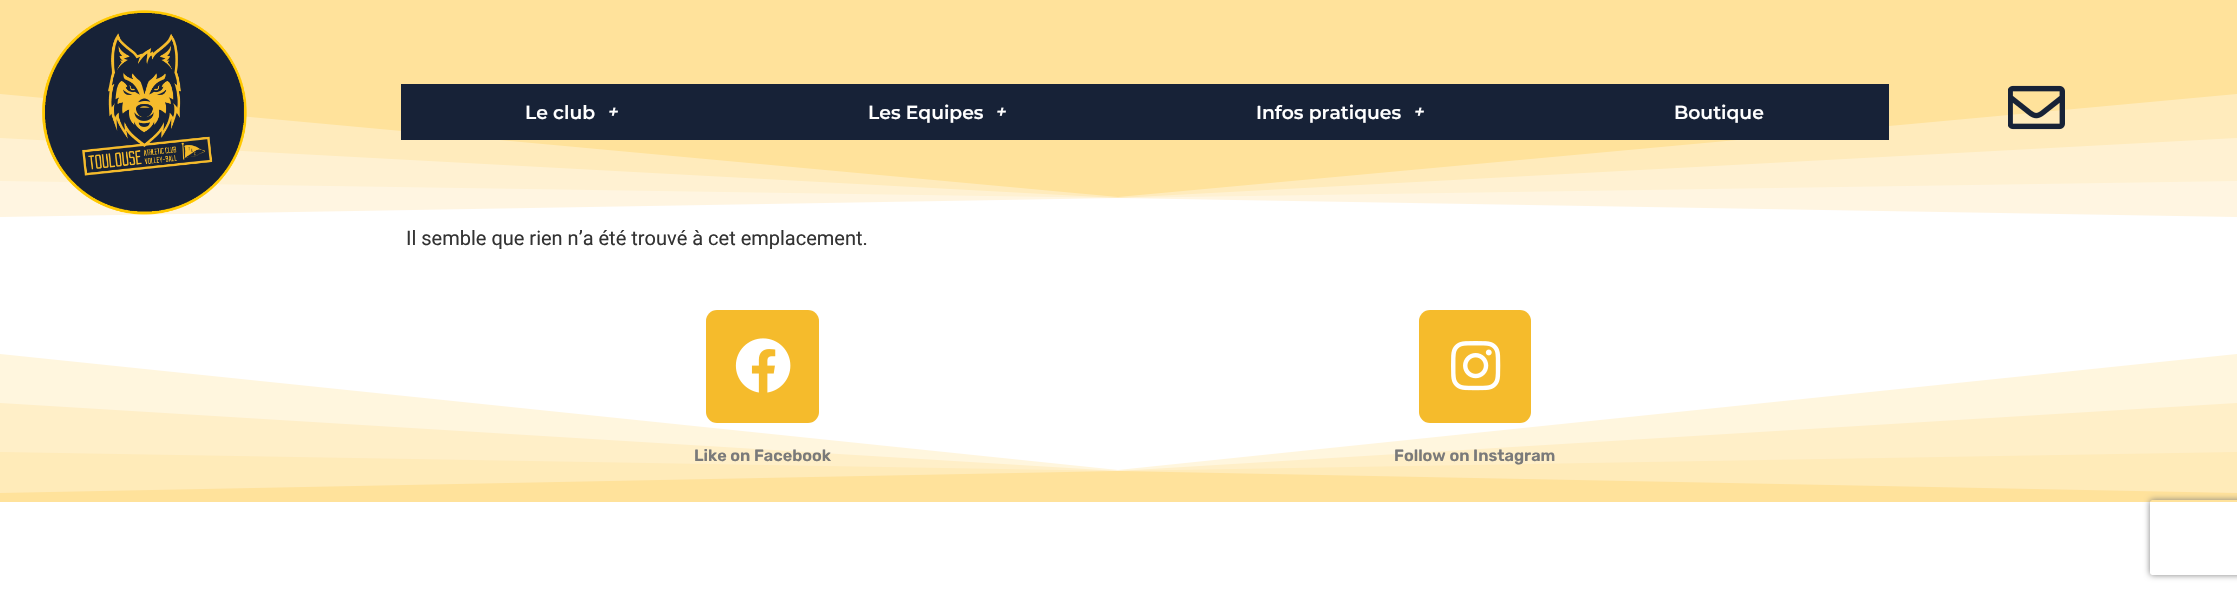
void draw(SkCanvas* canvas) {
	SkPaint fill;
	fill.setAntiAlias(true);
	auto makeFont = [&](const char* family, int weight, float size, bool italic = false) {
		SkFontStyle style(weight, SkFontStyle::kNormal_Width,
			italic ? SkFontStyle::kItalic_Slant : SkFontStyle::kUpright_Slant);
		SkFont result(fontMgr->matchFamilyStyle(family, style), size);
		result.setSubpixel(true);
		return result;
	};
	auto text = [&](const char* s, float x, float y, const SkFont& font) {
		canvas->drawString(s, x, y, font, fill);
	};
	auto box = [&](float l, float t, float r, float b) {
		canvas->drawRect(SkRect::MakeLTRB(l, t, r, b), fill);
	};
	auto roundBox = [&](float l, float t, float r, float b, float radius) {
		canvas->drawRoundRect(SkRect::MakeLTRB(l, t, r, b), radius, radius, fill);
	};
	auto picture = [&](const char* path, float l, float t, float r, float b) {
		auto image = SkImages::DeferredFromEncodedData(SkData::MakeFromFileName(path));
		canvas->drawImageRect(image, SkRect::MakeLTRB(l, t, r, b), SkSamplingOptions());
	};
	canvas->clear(0xFFFFFFFF);
	fill.setColor(0xFFFFE29B);
	box(0, 0, 2237, 217);
	canvas->save();
	canvas->clipRect(SkRect::MakeLTRB(0, 88, 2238, 225));
	fill.setColor(0x54FFFFFF);
	canvas->drawPath(SkPathBuilder().moveTo(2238, 226).lineTo(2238, 94).lineTo(1118, 197).lineTo(-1, 94).lineTo(-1, 226).close().detach(), fill);
	canvas->drawPath(SkPathBuilder().moveTo(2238, 226).lineTo(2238, 138).lineTo(1118, 198).lineTo(-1, 138).lineTo(-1, 226).close().detach(), fill);
	canvas->drawPath(SkPathBuilder().moveTo(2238, 226).lineTo(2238, 181).lineTo(1118, 198).lineTo(-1, 181).lineTo(-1, 226).close().detach(), fill);
	fill.setColor(0xFFFFFFFF);
	canvas->drawPath(SkPathBuilder().moveTo(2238, 226).lineTo(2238, 217).lineTo(1118, 198).lineTo(-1, 217).lineTo(-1, 226).close().detach(), fill);
	canvas->restore();
	picture("image0.png", 42, 10, 247, 215);
	fill.setColor(0xFF172237);
	box(401, 84, 1889, 140);
	picture("image1.png", 2008, 85, 2065, 130);
	fill.setColor(0xFFFFF6DE);
	canvas->drawPath(SkPathBuilder().moveTo(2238, 502).lineTo(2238, 354).lineTo(1118, 470).lineTo(-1, 354).lineTo(-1, 502).close().detach(), fill);
	fill.setColor(0xFFFFEFC8);
	canvas->drawPath(SkPathBuilder().moveTo(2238, 502).lineTo(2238, 403).lineTo(1118, 471).lineTo(-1, 403).lineTo(-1, 502).close().detach(), fill);
	fill.setColor(0xFFFFEBB9);
	canvas->drawPath(SkPathBuilder().moveTo(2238, 502).lineTo(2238, 452).lineTo(1118, 471).lineTo(-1, 452).lineTo(-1, 502).close().detach(), fill);
	fill.setColor(0xFFFFE29B);
	canvas->drawPath(SkPathBuilder().moveTo(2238, 502).lineTo(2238, 493).lineTo(1118, 471).lineTo(-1, 493).lineTo(-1, 502).close().detach(), fill);
	fill.setColor(0xFFF5BB2C);
	roundBox(706, 310, 819, 423, 11);
	picture("image2.png", 735, 338, 791, 393);
	roundBox(1419, 310, 1531, 423, 11);
	picture("image3.png", 1451, 341, 1501, 391);
	canvas->save();
	canvas->clipPath(SkPathBuilder(SkPathFillType::kEvenOdd).moveTo(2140, 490).lineTo(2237, 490).lineTo(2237, 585).lineTo(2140, 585).close().moveTo(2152.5f, 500).lineTo(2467.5f, 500).cubicTo(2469, 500, 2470, 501, 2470, 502.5f).lineTo(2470, 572.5f).cubicTo(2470, 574, 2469, 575, 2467.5f, 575).lineTo(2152.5f, 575).cubicTo(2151, 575, 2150, 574, 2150, 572.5f).lineTo(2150, 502.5f).cubicTo(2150, 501, 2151, 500, 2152.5f, 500).close().detach(), true);
	fill.setColor(0xFF808080);
	fill.setMaskFilter(SkMaskFilter::MakeBlur(kNormal_SkBlurStyle, 3));
	canvas->drawRoundRect(SkRect::MakeLTRB(2150, 500, 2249, 575), 2.5f, 2.5f, fill);
	fill.setMaskFilter(nullptr);
	canvas->restore();
	auto font1 = makeFont("Montserrat", 600, 18.75f);
	fill.setColor(0xFFFFFFFF);
	text("Le club", 525, 119, font1);
	auto font2 = makeFont("Montserrat", 600, 18, true);
	text("+", 608, 118, font2);
	text("Les Equipes", 868, 119, font1);
	text("+", 996, 118, font2);
	text("Infos pratiques", 1256, 119, font1);
	text("+", 1414, 118, font2);
	text("Boutique", 1674, 119, font1);
	auto font3 = makeFont("Roboto", 400, 20);
	fill.setColor(0xFF333333);
	text("Il semble que rien n’a été trouvé à cet emplacement.", 406, 245, font3);
	auto font4 = makeFont("Rubik", 600, 16.25f);
	fill.setColor(0xFF7A7A7A);
	text("Like on Facebook", 694, 461, font4);
	text("Follow on Instagram", 1394, 461, font4);
}
